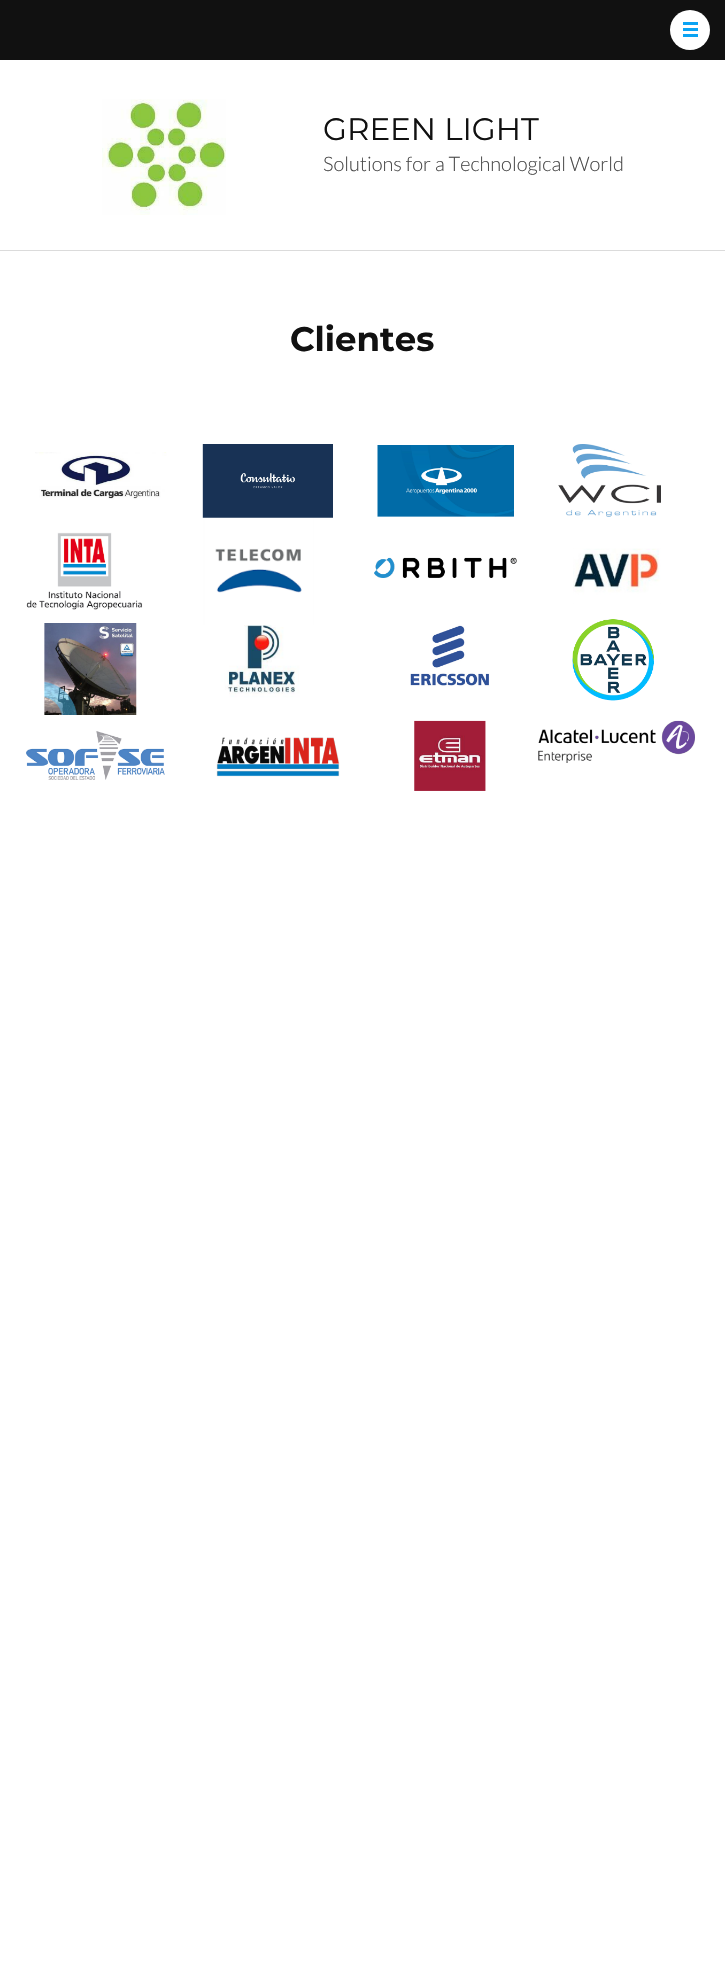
void draw(SkCanvas* canvas) {
	SkPaint fill;
	fill.setAntiAlias(true);
	auto makeFont = [&](const char* family, int weight, float size, bool italic = false) {
		SkFontStyle style(weight, SkFontStyle::kNormal_Width,
			italic ? SkFontStyle::kItalic_Slant : SkFontStyle::kUpright_Slant);
		SkFont result(fontMgr->matchFamilyStyle(family, style), size);
		result.setSubpixel(true);
		return result;
	};
	auto text = [&](const char* s, float x, float y, const SkFont& font) {
		canvas->drawString(s, x, y, font, fill);
	};
	auto box = [&](float l, float t, float r, float b) {
		canvas->drawRect(SkRect::MakeLTRB(l, t, r, b), fill);
	};
	auto picture = [&](const char* path, float l, float t, float r, float b) {
		auto image = SkImages::DeferredFromEncodedData(SkData::MakeFromFileName(path));
		canvas->drawImageRect(image, SkRect::MakeLTRB(l, t, r, b), SkSamplingOptions());
	};
	canvas->clear(0xFFFFFFFF);
	fill.setColor(0xFF111111);
	box(0, 0, 725, 60);
	fill.setColor(0xFFFFFFFF);
	canvas->drawCircle(690, 30, 20, fill);
	fill.setColor(0xFF0AA3F3);
	box(683, 22, 698, 25);
	box(683, 28, 698, 31);
	box(683, 34, 698, 37);
	fill.setColor(0xFFDBDBDB);
	box(0, 250, 725, 251);
	picture("image0.png", 102, 99, 226, 215);
	picture("image1.png", 26, 444, 695, 791);
	auto font1 = makeFont("Montserrat", 400, 31);
	fill.setColor(0xFF111111);
	text("GREEN LIGHT", 323, 140, font1);
	auto font2 = makeFont("Lato", 300, 20);
	fill.setColor(0xFF4A4A4A);
	text("Solutions for a Technological World", 323, 171, font2);
	auto font3 = makeFont("Montserrat", 700, 34);
	fill.setColor(0xFF111111);
	text("Clientes", 290, 351, font3);
}
